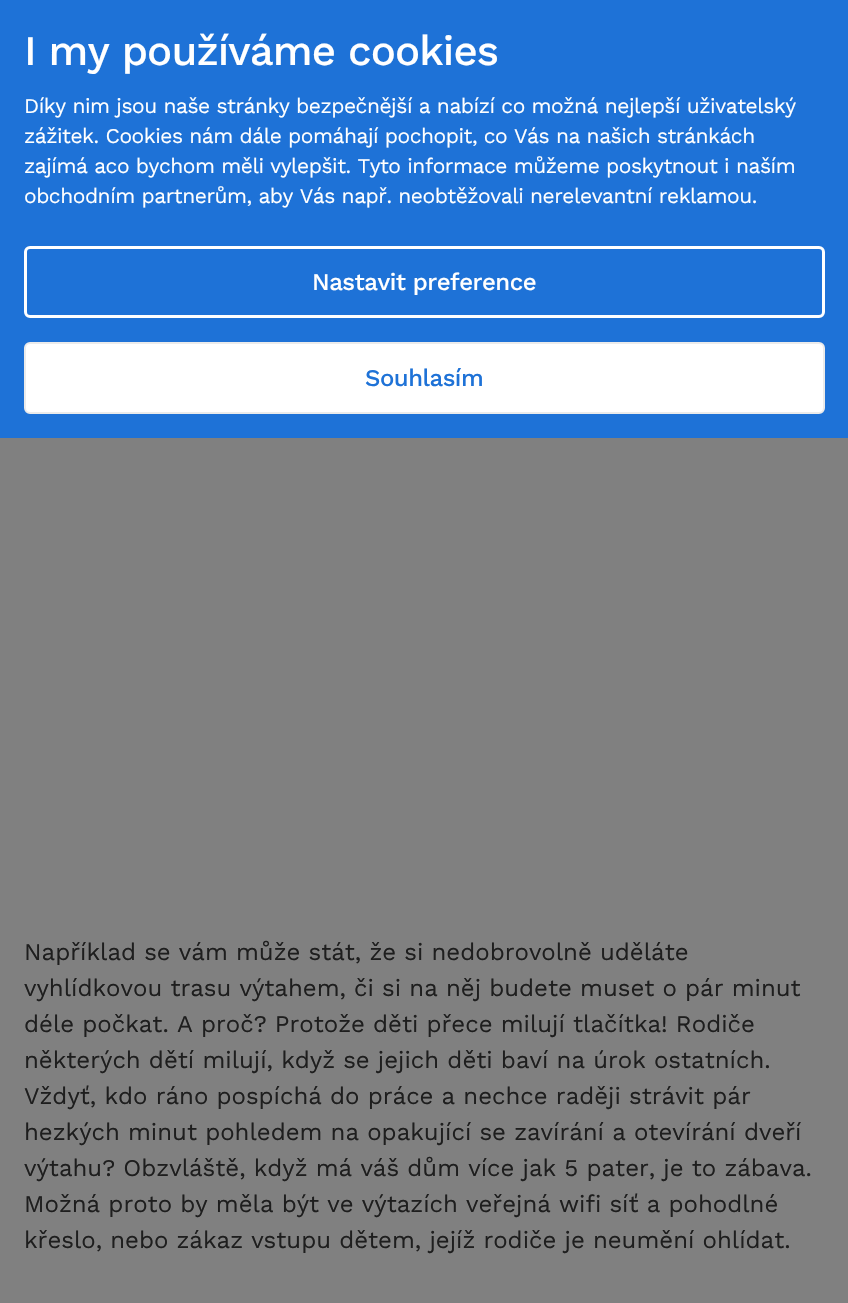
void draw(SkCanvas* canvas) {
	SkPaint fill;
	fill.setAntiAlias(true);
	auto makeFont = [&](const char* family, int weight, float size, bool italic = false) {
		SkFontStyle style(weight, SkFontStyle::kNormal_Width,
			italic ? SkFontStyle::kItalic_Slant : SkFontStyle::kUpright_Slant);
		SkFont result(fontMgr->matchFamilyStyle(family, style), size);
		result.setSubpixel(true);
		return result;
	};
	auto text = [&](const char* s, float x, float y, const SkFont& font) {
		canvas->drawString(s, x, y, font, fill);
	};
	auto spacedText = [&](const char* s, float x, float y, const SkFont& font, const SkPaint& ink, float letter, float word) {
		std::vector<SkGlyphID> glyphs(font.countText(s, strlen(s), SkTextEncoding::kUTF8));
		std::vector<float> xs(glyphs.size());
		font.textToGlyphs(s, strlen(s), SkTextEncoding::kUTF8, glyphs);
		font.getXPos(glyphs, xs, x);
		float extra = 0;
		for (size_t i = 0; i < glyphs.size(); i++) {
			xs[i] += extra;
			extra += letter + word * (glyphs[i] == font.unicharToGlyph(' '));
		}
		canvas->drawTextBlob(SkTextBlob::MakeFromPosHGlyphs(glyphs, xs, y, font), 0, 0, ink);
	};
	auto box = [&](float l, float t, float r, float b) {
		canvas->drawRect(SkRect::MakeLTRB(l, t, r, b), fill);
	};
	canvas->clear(0xFF808080);
	fill.setColor(0xFF1E72D7);
	box(0, 0, 848, 438);
	fill.setStyle(SkPaint::kStroke_Style);
	fill.setStrokeWidth(3);
	fill.setColor(0xFFFFFFFF);
	canvas->drawRoundRect(SkRect::MakeLTRB(25.5f, 247.5f, 823.5f, 316.5f), 4.5f, 4.5f, fill);
	fill.setStyle(SkPaint::kFill_Style);
	canvas->drawRoundRect(SkRect::MakeLTRB(25, 343, 824, 413), 5, 5, fill);
	fill.setStyle(SkPaint::kStroke_Style);
	fill.setStrokeWidth(2);
	fill.setColor(0xFFEBEBEB);
	canvas->drawRoundRect(SkRect::MakeLTRB(25, 343, 824, 413), 5, 5, fill);
	auto font1 = makeFont("Work Sans", 500, 42);
	fill.setStyle(SkPaint::kFill_Style);
	fill.setColor(0xFFFFFFFF);
	spacedText("I my používáme cookies", 24, 65, font1, fill, -0.9f, 0);
	auto font2 = makeFont("Work Sans", 400, 21);
	spacedText("Díky nim jsou naše stránky bezpečnější a nabízí co možná nejlepší uživatelský", 24, 113, font2, fill, -0.45f, 0);
	spacedText("zážitek. Cookies nám dále pomáhají pochopit, co Vás na našich stránkách", 24, 143, font2, fill, -0.45f, 0);
	spacedText("zajímá aco bychom měli vylepšit. Tyto informace můžeme poskytnout i naším", 24, 173, font2, fill, -0.45f, 0);
	spacedText("obchodním partnerům, aby Vás např. neobtěžovali nerelevantní reklamou.", 24, 203, font2, fill, -0.45f, 0);
	auto font3 = makeFont("Work Sans", 500, 24);
	spacedText("Nastavit preference", 312, 290, font3, fill, -0.5f, 0);
	fill.setColor(0xFF1E72D7);
	spacedText("Souhlasím", 365, 386, font3, fill, -0.5f, 0);
	auto font4 = makeFont("Work Sans", 400, 24);
	fill.setColor(0xFF1E1E1E);
	text("Například se vám může stát, že si nedobrovolně uděláte", 24, 960, font4);
	text("vyhlídkovou trasu výtahem, či si na něj budete muset o pár minut", 24, 996, font4);
	text("déle počkat. A proč? Protože děti přece milují tlačítka! Rodiče", 24, 1032, font4);
	text("některých dětí milují, když se jejich děti baví na úrok ostatních.", 24, 1068, font4);
	text("Vždyť, kdo ráno pospíchá do práce a nechce raději strávit pár", 24, 1104, font4);
	text("hezkých minut pohledem na opakující se zavírání a otevírání dveří", 24, 1140, font4);
	text("výtahu? Obzvláště, když má váš dům více jak 5 pater, je to zábava.", 24, 1176, font4);
	text("Možná proto by měla být ve výtazích veřejná wifi síť a pohodlné", 24, 1212, font4);
	text("křeslo, nebo zákaz vstupu dětem, jejíž rodiče je neumění ohlídat.", 24, 1248, font4);
}
